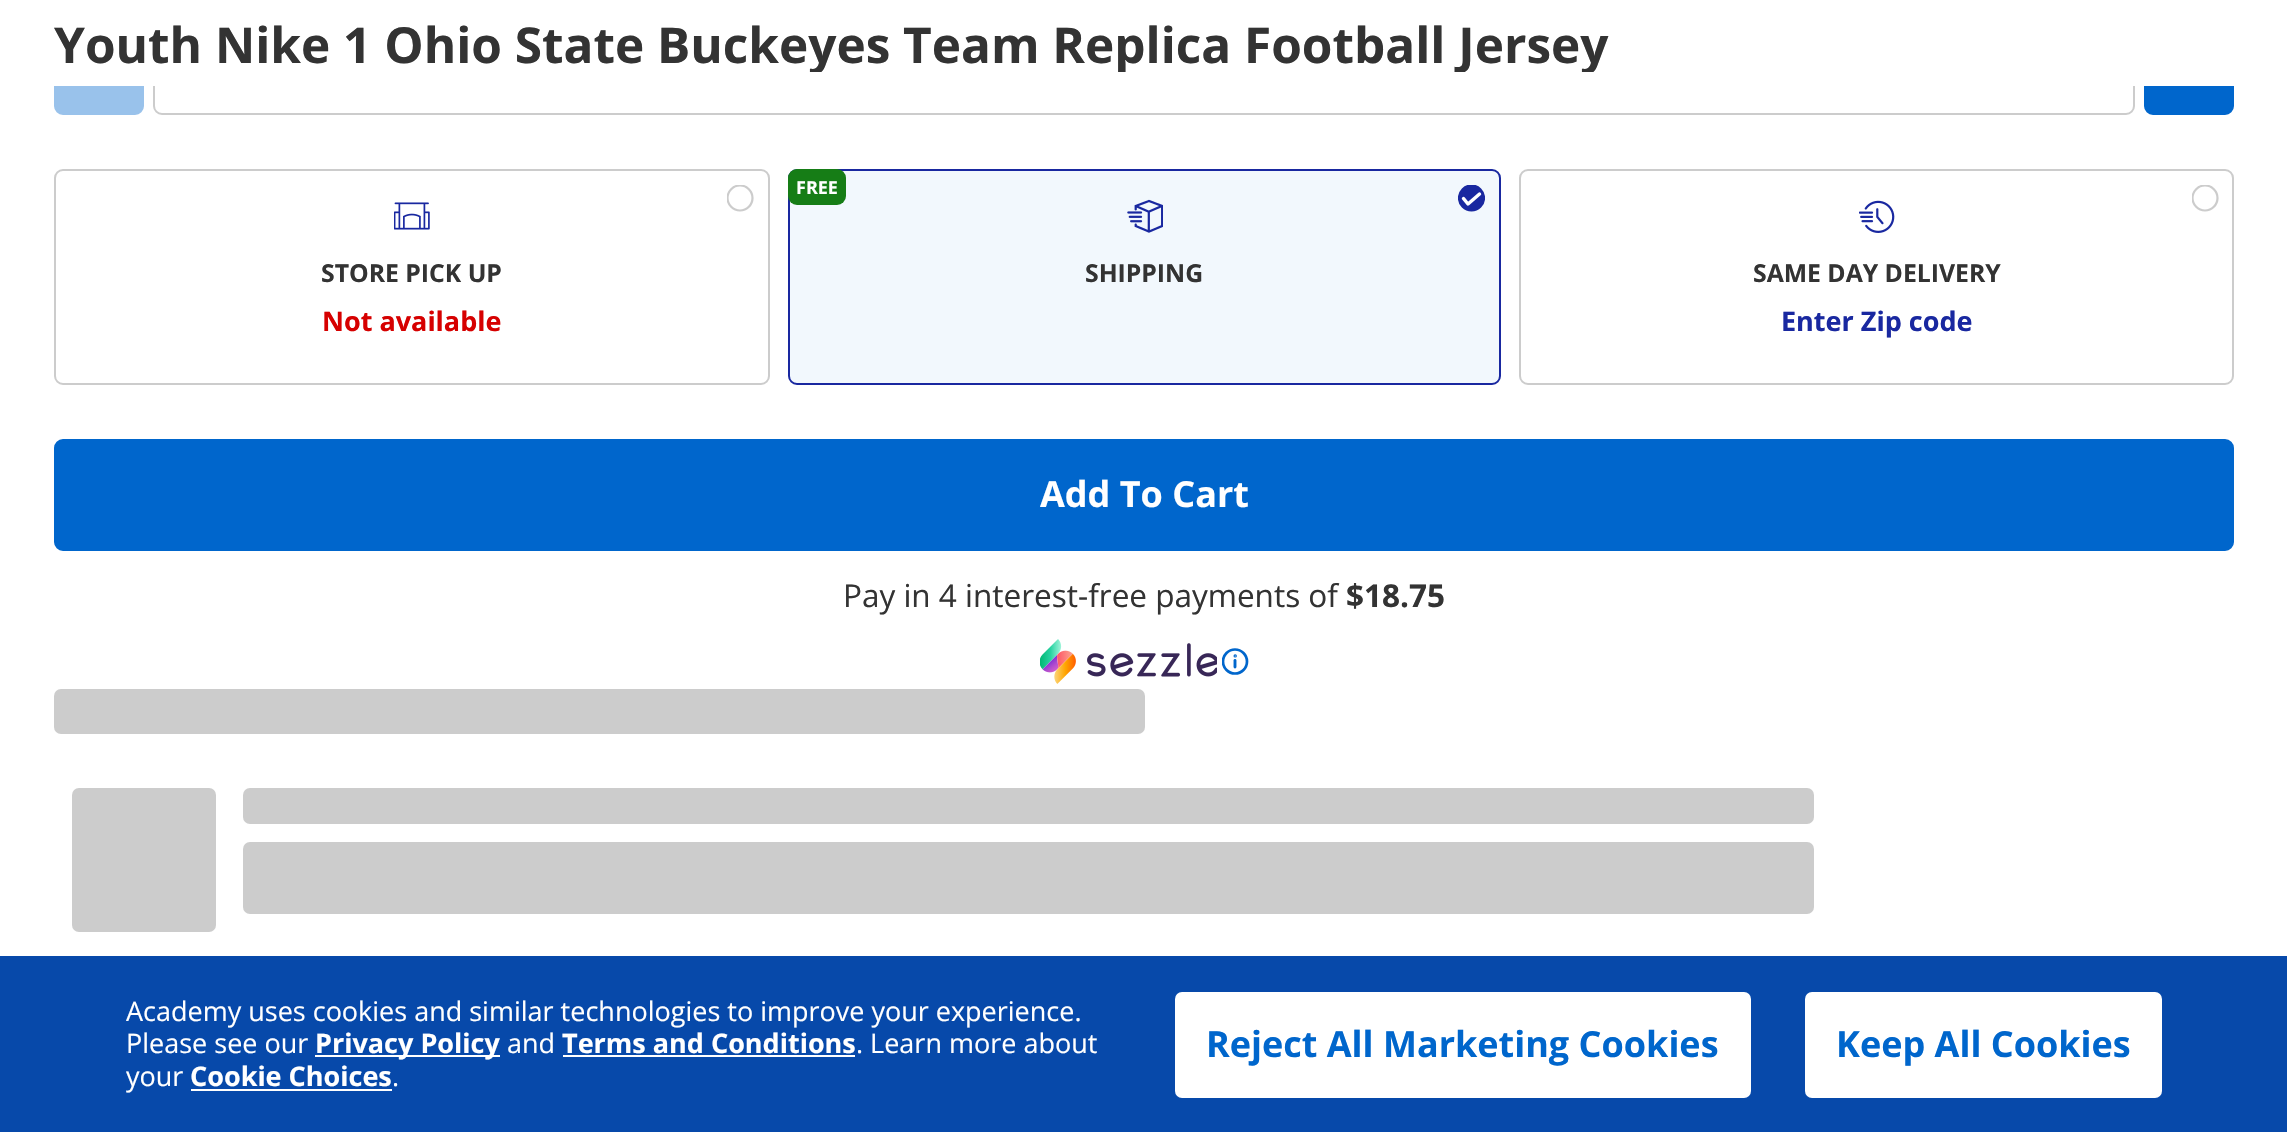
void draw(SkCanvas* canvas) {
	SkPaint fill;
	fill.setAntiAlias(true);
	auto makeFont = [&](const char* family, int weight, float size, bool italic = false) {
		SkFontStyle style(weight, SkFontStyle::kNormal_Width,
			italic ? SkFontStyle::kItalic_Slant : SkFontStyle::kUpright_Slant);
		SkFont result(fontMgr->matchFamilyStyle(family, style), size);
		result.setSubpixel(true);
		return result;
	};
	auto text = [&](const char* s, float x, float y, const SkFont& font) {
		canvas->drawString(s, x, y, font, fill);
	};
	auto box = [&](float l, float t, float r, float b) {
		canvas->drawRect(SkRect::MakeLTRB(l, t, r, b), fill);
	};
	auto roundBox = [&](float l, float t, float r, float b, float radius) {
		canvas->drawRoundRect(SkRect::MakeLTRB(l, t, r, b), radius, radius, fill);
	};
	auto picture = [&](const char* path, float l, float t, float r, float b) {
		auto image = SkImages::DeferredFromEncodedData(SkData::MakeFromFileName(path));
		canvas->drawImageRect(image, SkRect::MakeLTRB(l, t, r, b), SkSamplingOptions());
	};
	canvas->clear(0xFFFFFFFF);
	fill.setColor(0xFF99C2EB);
	canvas->drawRoundRect(SkRect::MakeLTRB(55, 26, 143, 114), 8, 8, fill);
	fill.setStyle(SkPaint::kStroke_Style);
	fill.setStrokeWidth(2);
	canvas->drawRoundRect(SkRect::MakeLTRB(55, 26, 143, 114), 8, 8, fill);
	fill.setColor(0xFFCCCCCC);
	canvas->drawRoundRect(SkRect::MakeLTRB(154, 26, 2134, 114), 8, 8, fill);
	fill.setStyle(SkPaint::kFill_Style);
	fill.setColor(0xFF0066CC);
	canvas->drawRoundRect(SkRect::MakeLTRB(2145, 26, 2233, 114), 8, 8, fill);
	fill.setStyle(SkPaint::kStroke_Style);
	canvas->drawRoundRect(SkRect::MakeLTRB(2145, 26, 2233, 114), 8, 8, fill);
	fill.setStyle(SkPaint::kFill_Style);
	fill.setColor(0xFFFFFFFF);
	box(54, 25, 2234, 86);
	fill.setColor(0xFFF2F8FD);
	canvas->drawRoundRect(SkRect::MakeLTRB(789, 170, 1500, 384), 8, 8, fill);
	fill.setStyle(SkPaint::kStroke_Style);
	fill.setColor(0xFF1928A0);
	canvas->drawRoundRect(SkRect::MakeLTRB(789, 170, 1500, 384), 8, 8, fill);
	fill.setStyle(SkPaint::kFill_Style);
	fill.setColor(0xFF167D16);
	roundBox(788, 169, 846, 205, 9);
	fill.setColor(0xFF1928A0);
	canvas->drawCircle(1471.5f, 198, 12.5f, fill);
	canvas->save();
	canvas->clipRect(SkRect::MakeLTRB(1458, 185, 1485, 212));
	fill.setStyle(SkPaint::kStroke_Style);
	fill.setStrokeWidth(2.2f);
	canvas->drawCircle(1471.5f, 198, 12.5f, fill);
	canvas->restore();
	fill.setStrokeWidth(3.4f);
	fill.setStrokeCap(SkPaint::kRound_Cap);
	fill.setStrokeJoin(SkPaint::kRound_Join);
	fill.setColor(0xFFFFFFFF);
	canvas->drawPath(SkPathBuilder().moveTo(1463.5f, 198.5f).lineTo(1468, 204).lineTo(1479.5f, 194).detach(), fill);
	picture("image0.png", 1127, 199, 1163, 233);
	fill.setStrokeWidth(2);
	fill.setStrokeCap(SkPaint::kButt_Cap);
	fill.setStrokeJoin(SkPaint::kMiter_Join);
	fill.setColor(0xFFCCCCCC);
	canvas->drawRoundRect(SkRect::MakeLTRB(55, 170, 769, 384), 8, 8, fill);
	canvas->save();
	canvas->clipRect(SkRect::MakeLTRB(727, 185, 754, 212));
	fill.setStrokeWidth(2.2f);
	canvas->drawCircle(740, 198, 12.5f, fill);
	canvas->restore();
	picture("image1.png", 394, 202, 430, 230);
	fill.setStrokeWidth(2);
	canvas->drawRoundRect(SkRect::MakeLTRB(1520, 170, 2233, 384), 8, 8, fill);
	canvas->save();
	canvas->clipRect(SkRect::MakeLTRB(2192, 185, 2219, 212));
	fill.setStrokeWidth(2.2f);
	canvas->drawCircle(2205, 198, 12.5f, fill);
	canvas->restore();
	picture("image2.png", 1859, 200, 1895, 233);
	fill.setStyle(SkPaint::kFill_Style);
	fill.setColor(0xFF0066CC);
	canvas->drawRoundRect(SkRect::MakeLTRB(55, 440, 2233, 550), 8, 8, fill);
	fill.setStyle(SkPaint::kStroke_Style);
	fill.setStrokeWidth(2);
	canvas->drawRoundRect(SkRect::MakeLTRB(55, 440, 2233, 550), 8, 8, fill);
	picture("image3.png", 1040, 639, 1217, 684);
	canvas->save();
	canvas->clipRect(SkRect::MakeLTRB(1222, 648, 1249, 675));
	fill.setStrokeWidth(2.7f);
	canvas->drawCircle(1235, 661.5f, 12, fill);
	canvas->restore();
	fill.setStrokeWidth(2.2f);
	canvas->drawCircle(1235.2f, 655.9f, 0.6f, fill);
	fill.setStrokeWidth(2.9f);
	fill.setStrokeCap(SkPaint::kRound_Cap);
	canvas->drawPath(SkPathBuilder().moveTo(1235, 660.5f).lineTo(1235, 667).detach(), fill);
	fill.setStyle(SkPaint::kFill_Style);
	fill.setColor(0xFFCCCCCC);
	roundBox(54, 689, 1145, 734, 7);
	roundBox(72, 788, 216, 932, 7);
	roundBox(243, 788, 1814, 824, 7);
	roundBox(243, 842, 1814, 914, 7);
	fill.setColor(0xFF0749AA);
	box(0, 956, 2287, 1132);
	fill.setColor(0xFFFFFFFF);
	box(315, 1055, 500, 1057);
	box(563, 1055, 855, 1057);
	box(191, 1089, 392, 1091);
	roundBox(1175, 992, 1751, 1098, 7);
	roundBox(1805, 992, 2162, 1098, 7);
	canvas->save();
	canvas->clipRect(SkRect::MakeLTRB(54, 14, 2176, 72));
	auto font1 = makeFont("Open Sans", 700, 49.5f);
	fill.setColor(0xFF333333);
	text("Youth Nike 1 Ohio State Buckeyes Team Replica Football Jersey", 54, 63, font1);
	canvas->restore();
	auto font2 = makeFont("Open Sans", 700, 18);
	fill.setColor(0xFFFFFFFF);
	text("FREE", 796, 194, font2);
	auto font3 = makeFont("Open Sans", 700, 24.75f);
	fill.setColor(0xFF333333);
	text("SHIPPING", 1085, 282, font3);
	text("STORE PICK UP", 321, 282, font3);
	auto font4 = makeFont("Open Sans", 700, 27);
	fill.setColor(0xFFD60000);
	text("Not available", 322, 331, font4);
	fill.setColor(0xFF333333);
	text("SAME DAY DELIVERY", 1753, 282, font3);
	fill.setColor(0xFF1928A0);
	text("Enter Zip code", 1781, 331, font4);
	auto font5 = makeFont("Open Sans", 700, 36);
	fill.setColor(0xFFFFFFFF);
	text("Add To Cart", 1040, 507, font5);
	auto font6 = makeFont("Open Sans", 400, 31.5f);
	fill.setColor(0xFF333333);
	text("Pay in 4 interest-free payments of", 843, 607, font6);
	auto font7 = makeFont("Open Sans", 700, 31.5f);
	text("$18.75", 1346, 607, font7);
	auto font8 = makeFont("Open Sans", 400, 27);
	fill.setColor(0xFFFFFFFF);
	text("Academy uses cookies and similar technologies to improve your experience.", 126, 1021, font8);
	text("Please see our", 126, 1053, font8);
	text("Privacy Policy", 315, 1053, font4);
	text("and", 507, 1053, font8);
	text("Terms and Conditions", 562, 1053, font4);
	text(". Learn more about", 856, 1053, font8);
	text("your", 126, 1086, font8);
	text("Cookie Choices", 190, 1086, font4);
	text(".", 392, 1086, font8);
	fill.setColor(0xFF0066CC);
	text("Reject All Marketing Cookies", 1206, 1057, font5);
	text("Keep All Cookies", 1836, 1057, font5);
}
